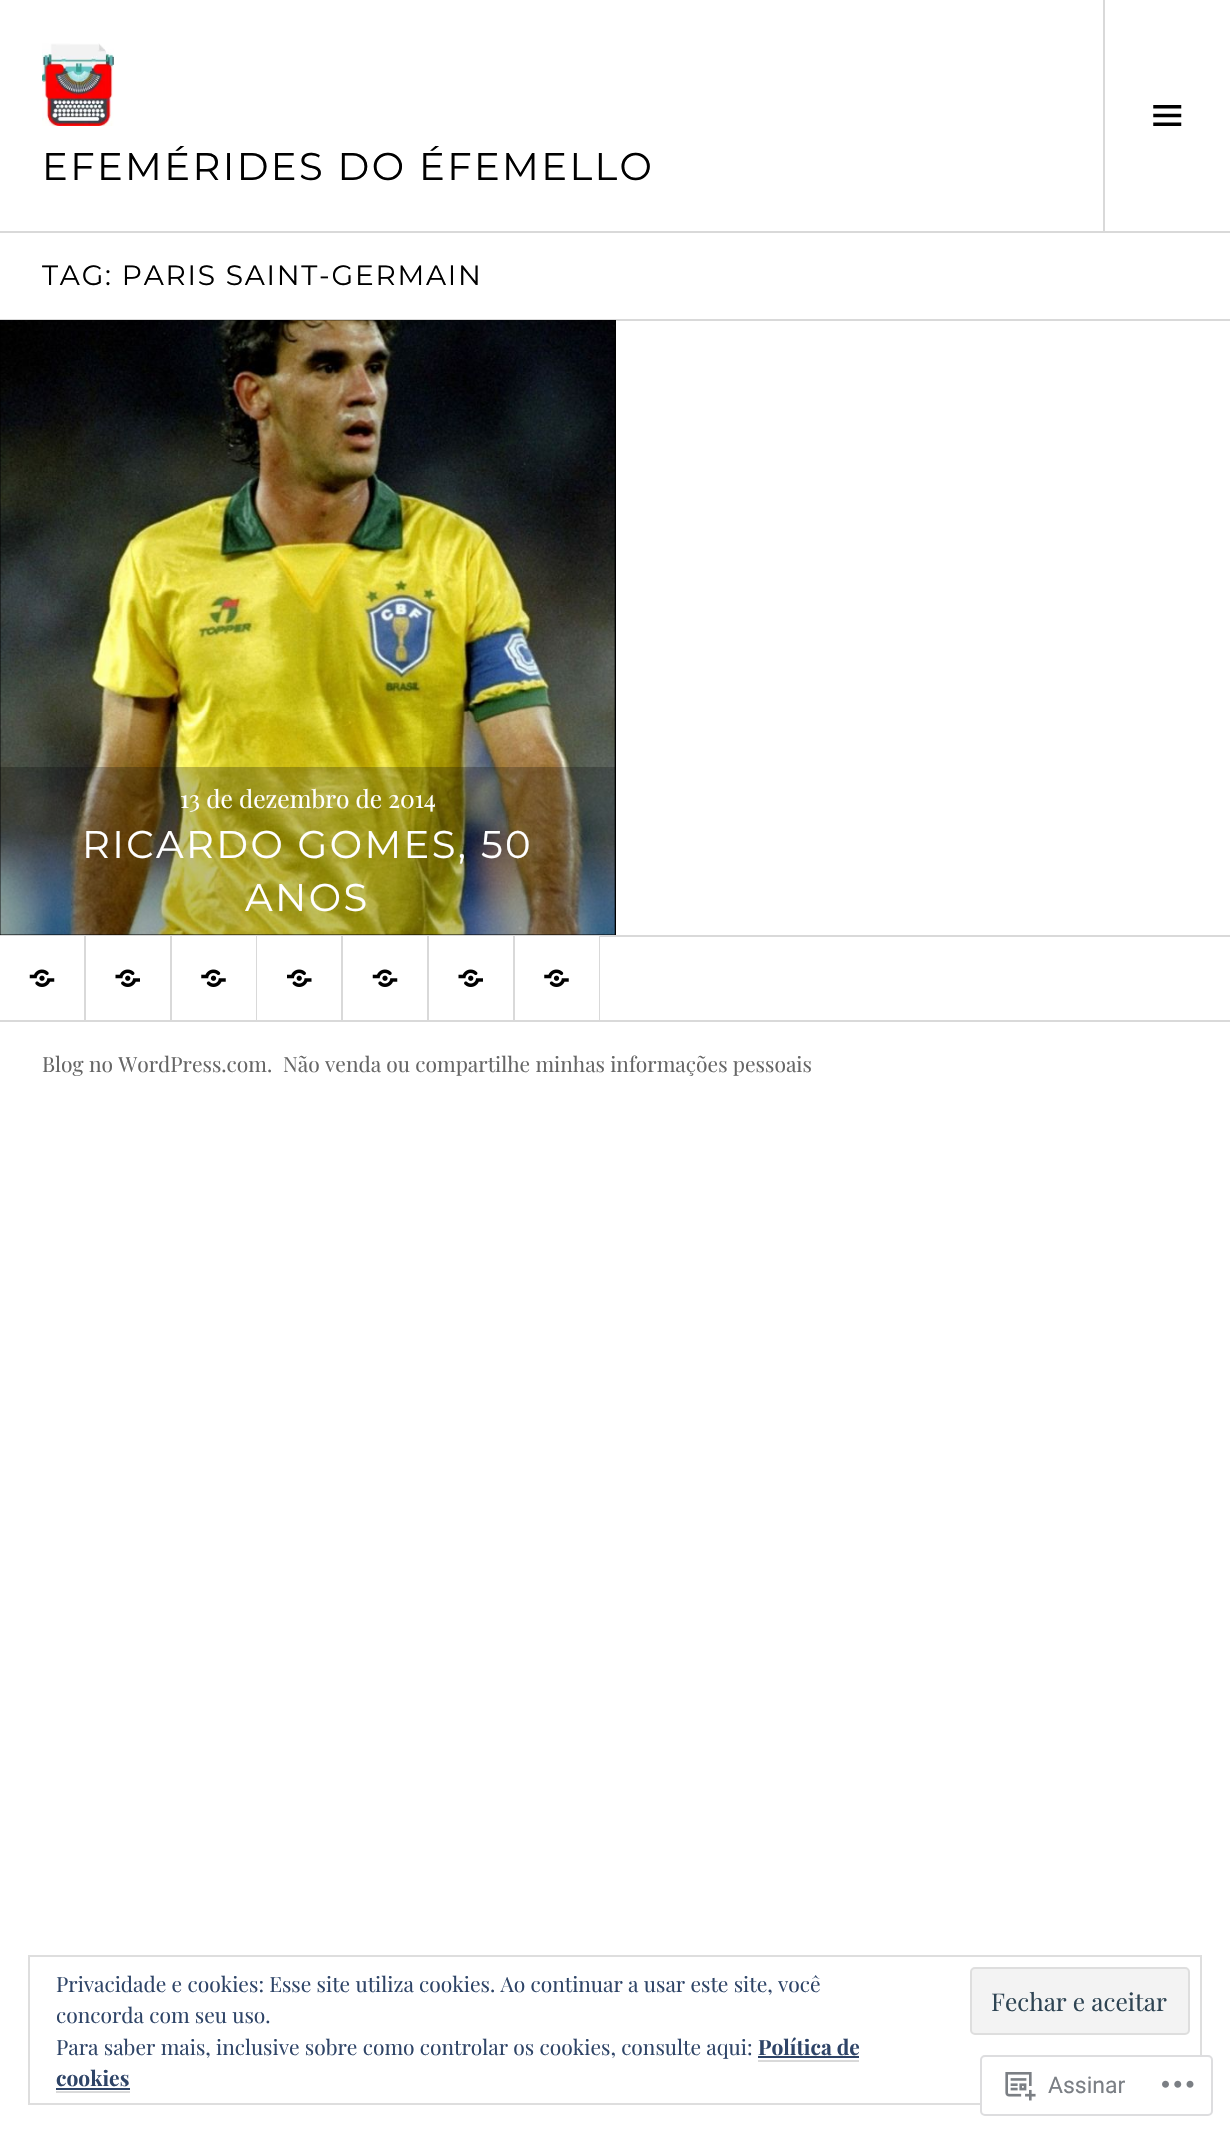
void draw(SkCanvas* canvas) {
	SkPaint fill;
	fill.setAntiAlias(true);
	auto makeFont = [&](const char* family, int weight, float size, bool italic = false) {
		SkFontStyle style(weight, SkFontStyle::kNormal_Width,
			italic ? SkFontStyle::kItalic_Slant : SkFontStyle::kUpright_Slant);
		SkFont result(fontMgr->matchFamilyStyle(family, style), size);
		result.setSubpixel(true);
		return result;
	};
	auto text = [&](const char* s, float x, float y, const SkFont& font) {
		canvas->drawString(s, x, y, font, fill);
	};
	auto spacedText = [&](const char* s, float x, float y, const SkFont& font, const SkPaint& ink, float letter, float word) {
		std::vector<SkGlyphID> glyphs(font.countText(s, strlen(s), SkTextEncoding::kUTF8));
		std::vector<float> xs(glyphs.size());
		font.textToGlyphs(s, strlen(s), SkTextEncoding::kUTF8, glyphs);
		font.getXPos(glyphs, xs, x);
		float extra = 0;
		for (size_t i = 0; i < glyphs.size(); i++) {
			xs[i] += extra;
			extra += letter + word * (glyphs[i] == font.unicharToGlyph(' '));
		}
		canvas->drawTextBlob(SkTextBlob::MakeFromPosHGlyphs(glyphs, xs, y, font), 0, 0, ink);
	};
	auto box = [&](float l, float t, float r, float b) {
		canvas->drawRect(SkRect::MakeLTRB(l, t, r, b), fill);
	};
	auto picture = [&](const char* path, float l, float t, float r, float b) {
		auto image = SkImages::DeferredFromEncodedData(SkData::MakeFromFileName(path));
		canvas->drawImageRect(image, SkRect::MakeLTRB(l, t, r, b), SkSamplingOptions());
	};
	canvas->clear(0xFFFFFFFF);
	fill.setColor(0xFFD9D9D9);
	box(0, 231, 1230, 233);
	picture("image0.png", 42, 43, 114, 126);
	box(1103, 0, 1105, 231);
	picture("image1.png", 1153, 105, 1182, 126);
	box(0, 319, 1230, 321);
	fill.setColor(0xFF000000);
	box(0, 320, 616, 935);
	picture("image2.png", 0, 320, 615, 935);
	fill.setColor(0x40000000);
	box(0, 767, 615, 935);
	fill.setColor(0xFFD9D9D9);
	box(0, 935, 1230, 937);
	fill.setColor(0xFFFFFFFF);
	box(0, 936, 84, 937);
	picture("image3.png", 29, 969, 55, 987);
	canvas->save();
	canvas->clipRect(SkRect::MakeLTRB(0, 936, 1230, 1104));
	fill.setStyle(SkPaint::kStroke_Style);
	fill.setStrokeWidth(2);
	fill.setColor(0xFFD9D9D9);
	canvas->drawRect(SkRect::MakeLTRB(85, 936, 171, 1021), fill);
	canvas->restore();
	fill.setStyle(SkPaint::kFill_Style);
	fill.setColor(0xFFFFFFFF);
	box(86, 936, 170, 937);
	picture("image4.png", 115, 969, 140, 987);
	canvas->save();
	canvas->clipRect(SkRect::MakeLTRB(0, 936, 1230, 1104));
	fill.setStyle(SkPaint::kStroke_Style);
	fill.setColor(0xFFD9D9D9);
	canvas->drawRect(SkRect::MakeLTRB(171, 936, 256, 1021), fill);
	canvas->restore();
	fill.setStyle(SkPaint::kFill_Style);
	fill.setColor(0xFFFFFFFF);
	box(172, 936, 256, 1020);
	picture("image5.png", 201, 969, 226, 987);
	canvas->save();
	canvas->clipRect(SkRect::MakeLTRB(0, 936, 1230, 1104));
	fill.setStyle(SkPaint::kStroke_Style);
	fill.setColor(0xFFD9D9D9);
	canvas->drawRect(SkRect::MakeLTRB(257, 936, 342, 1021), fill);
	canvas->restore();
	fill.setStyle(SkPaint::kFill_Style);
	fill.setColor(0xFFFFFFFF);
	box(257, 936, 341, 1020);
	picture("image6.png", 287, 969, 312, 987);
	canvas->save();
	canvas->clipRect(SkRect::MakeLTRB(0, 936, 1230, 1104));
	fill.setStyle(SkPaint::kStroke_Style);
	fill.setColor(0xFFD9D9D9);
	canvas->drawRect(SkRect::MakeLTRB(342, 936, 428, 1021), fill);
	canvas->restore();
	fill.setStyle(SkPaint::kFill_Style);
	fill.setColor(0xFFFFFFFF);
	box(343, 936, 427, 937);
	picture("image3.png", 372, 969, 398, 987);
	canvas->save();
	canvas->clipRect(SkRect::MakeLTRB(0, 936, 1230, 1104));
	fill.setStyle(SkPaint::kStroke_Style);
	fill.setColor(0xFFD9D9D9);
	canvas->drawRect(SkRect::MakeLTRB(428, 936, 514, 1021), fill);
	canvas->restore();
	fill.setStyle(SkPaint::kFill_Style);
	fill.setColor(0xFFFFFFFF);
	box(429, 936, 513, 937);
	picture("image4.png", 458, 969, 483, 987);
	canvas->save();
	canvas->clipRect(SkRect::MakeLTRB(0, 936, 1230, 1104));
	fill.setStyle(SkPaint::kStroke_Style);
	fill.setColor(0xFFD9D9D9);
	canvas->drawRect(SkRect::MakeLTRB(514, 936, 599, 1021), fill);
	canvas->restore();
	fill.setStyle(SkPaint::kFill_Style);
	fill.setColor(0xFFFFFFFF);
	box(515, 936, 599, 1020);
	picture("image5.png", 544, 969, 569, 987);
	fill.setColor(0xFFD9D9D9);
	box(0, 1020, 1230, 1022);
	fill.setStyle(SkPaint::kStroke_Style);
	fill.setColor(0xFFDEDEDE);
	canvas->drawRect(SkRect::MakeLTRB(29, 1956, 1201, 2104), fill);
	fill.setStyle(SkPaint::kFill_Style);
	fill.setColor(0xFFF3F3F3);
	canvas->drawRoundRect(SkRect::MakeLTRB(971, 1968, 1189, 2034), 4, 4, fill);
	fill.setStyle(SkPaint::kStroke_Style);
	fill.setColor(0xFFDEDEDE);
	canvas->drawRoundRect(SkRect::MakeLTRB(971, 1968, 1189, 2034), 4, 4, fill);
	fill.setStyle(SkPaint::kFill_Style);
	fill.setColor(0xFFD9D9D9);
	box(758, 2060, 859, 2062);
	fill.setColor(0xFF2E4467);
	box(758, 2056, 859, 2058);
	fill.setColor(0xFFD9D9D9);
	box(56, 2091, 130, 2093);
	fill.setColor(0xFF2E4467);
	box(56, 2088, 130, 2090);
	fill.setColor(0xFAFFFFFF);
	canvas->drawRoundRect(SkRect::MakeLTRB(981, 2056, 1212, 2115), 4, 4, fill);
	fill.setStyle(SkPaint::kStroke_Style);
	fill.setColor(0xFFDDDDDF);
	canvas->drawRoundRect(SkRect::MakeLTRB(981, 2056, 1212, 2115), 4, 4, fill);
	picture("image7.png", 1005, 2072, 1036, 2101);
	picture("image8.png", 1162, 2080, 1194, 2088);
	auto font1 = makeFont("Montserrat", 400, 38.5f);
	fill.setStyle(SkPaint::kFill_Style);
	fill.setColor(0xFF000000);
	spacedText("EFEMÉRIDES DO ÉFEMELLO", 42, 180, font1, fill, 2.4f, 0);
	auto font2 = makeFont("Montserrat", 400, 28);
	spacedText("TAG: PARIS SAINT-GERMAIN", 42, 285, font2, fill, 1.75f, 0);
	auto font3 = makeFont("Playfair Display", 400, 24.5f);
	fill.setColor(0xFFFFFFFF);
	text("13 de dezembro de 2014", 180, 808, font3);
	spacedText("RICARDO GOMES, 50", 82, 858, font1, fill, 2.4f, 0);
	spacedText("ANOS", 245, 911, font1, fill, 2.4f, 0);
	auto font4 = makeFont("Playfair Display", 400, 21);
	fill.setColor(0xFF666666);
	text("Blog no WordPress.com.", 42, 1072, font4);
	text("Não venda ou compartilhe minhas informações pessoais", 283, 1072, font4);
	fill.setColor(0xFF2E4467);
	text("Privacidade e cookies: Esse site utiliza cookies. Ao continuar a usar este site, você", 56, 1992, font4);
	fill.setColor(0xFF2E4453);
	text("Fechar e aceitar", 991, 2011, font3);
	fill.setColor(0xFF2E4467);
	text("concorda com seu uso.", 56, 2023, font4);
	text("Para saber mais, inclusive sobre como controlar os cookies, consulte aqui:", 56, 2055, font4);
	auto font5 = makeFont("Playfair Display", 700, 21);
	text("Política de", 758, 2055, font5);
	text("cookies", 56, 2086, font5);
	auto font6 = makeFont("Roboto", 400, 23);
	fill.setColor(0xFF7B7F85);
	text("Assinar", 1048, 2093, font6);
}
